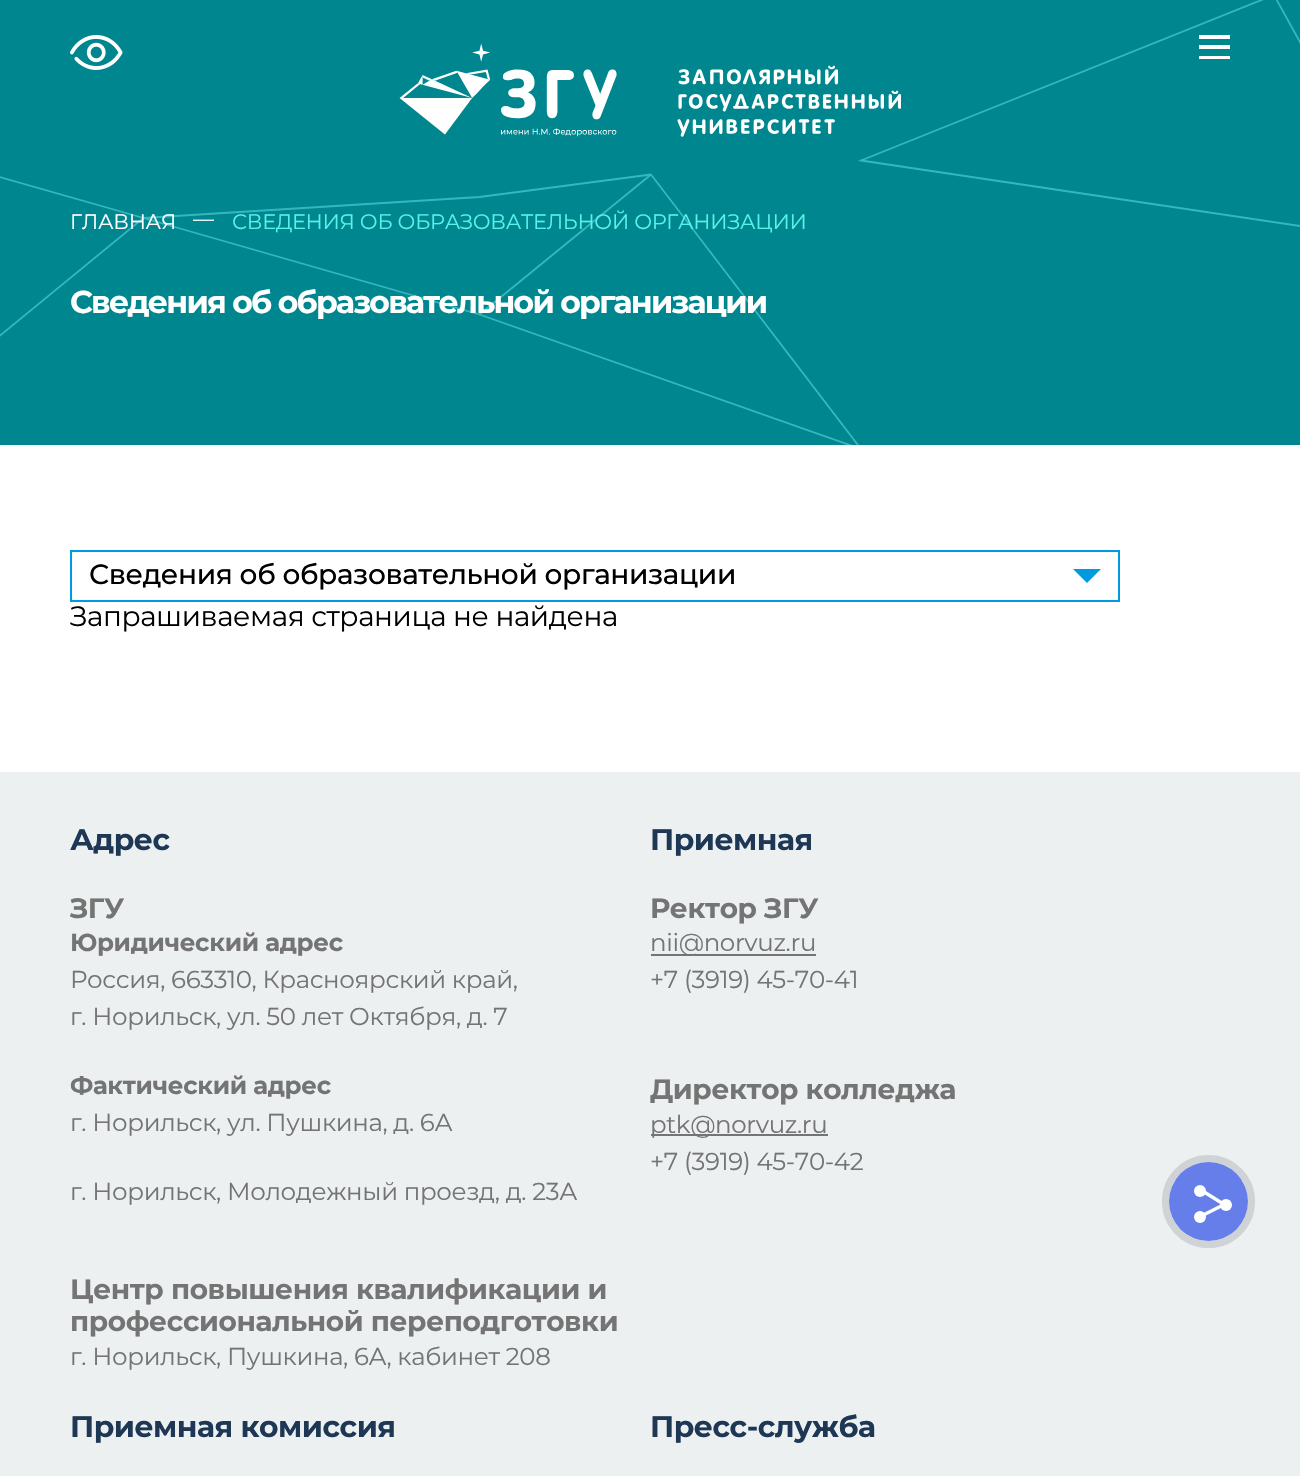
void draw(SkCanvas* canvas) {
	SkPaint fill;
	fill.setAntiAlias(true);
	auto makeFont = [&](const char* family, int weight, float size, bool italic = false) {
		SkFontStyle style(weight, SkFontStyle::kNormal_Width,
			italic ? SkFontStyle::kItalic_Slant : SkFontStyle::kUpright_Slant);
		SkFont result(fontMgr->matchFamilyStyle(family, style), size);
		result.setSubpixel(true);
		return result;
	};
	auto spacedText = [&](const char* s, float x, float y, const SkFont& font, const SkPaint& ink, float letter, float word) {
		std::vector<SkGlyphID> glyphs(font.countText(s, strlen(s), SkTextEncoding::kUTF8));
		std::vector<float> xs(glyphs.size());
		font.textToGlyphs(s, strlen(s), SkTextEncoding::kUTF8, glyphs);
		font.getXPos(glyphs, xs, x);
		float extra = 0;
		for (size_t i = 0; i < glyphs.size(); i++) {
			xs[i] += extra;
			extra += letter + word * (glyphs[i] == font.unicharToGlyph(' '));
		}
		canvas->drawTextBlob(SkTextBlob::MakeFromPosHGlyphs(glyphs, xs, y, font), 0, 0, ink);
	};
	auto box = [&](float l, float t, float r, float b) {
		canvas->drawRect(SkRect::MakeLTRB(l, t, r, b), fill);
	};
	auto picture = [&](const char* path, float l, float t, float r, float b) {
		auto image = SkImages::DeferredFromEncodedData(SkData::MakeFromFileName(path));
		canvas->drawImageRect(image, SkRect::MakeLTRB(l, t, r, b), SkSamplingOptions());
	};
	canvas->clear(0xFFFFFFFF);
	fill.setColor(0xFF00868E);
	box(0, 0, 1300, 445);
	canvas->save();
	canvas->clipRect(SkRect::MakeLTRB(0, 0, 1300, 445));
	fill.setStyle(SkPaint::kStroke_Style);
	fill.setStrokeWidth(1.8f);
	fill.setColor(0xFF35B7BF);
	canvas->drawPath(SkPathBuilder().moveTo(479.5f, 314.5f).lineTo(651, 174.5f).moveTo(479.5f, 314.5f).lineTo(861, 449).lineTo(651, 174.5f).moveTo(479.5f, 314.5f).lineTo(143.5f, 218).moveTo(651, 174.5f).lineTo(479.5f, 197).lineTo(143.5f, 218).moveTo(143.5f, 218).lineTo(-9, 174.5f).lineTo(-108.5f, 424.5f).close().moveTo(1274, -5).lineTo(861, 160.5f).lineTo(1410.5f, 242.5f).close().detach(), fill);
	canvas->restore();
	picture("image0.png", 70, 35, 123, 70);
	picture("image1.png", 399, 43, 901, 137);
	fill.setStyle(SkPaint::kFill_Style);
	fill.setColor(0xFFFFFFFF);
	box(1199, 35, 1230, 39);
	box(1199, 45, 1230, 49);
	box(1199, 56, 1230, 59);
	fill.setStyle(SkPaint::kStroke_Style);
	fill.setStrokeWidth(2);
	fill.setColor(0xFF009BDE);
	canvas->drawRect(SkRect::MakeLTRB(71, 551, 1119, 601), fill);
	fill.setStyle(SkPaint::kFill_Style);
	canvas->drawPath(SkPathBuilder().moveTo(1073, 569).lineTo(1101, 569).lineTo(1087, 583).close().detach(), fill);
	fill.setColor(0xFFECF0F1);
	box(0, 772, 1300, 1476);
	fill.setColor(0xFF747474);
	box(651, 954, 816, 956);
	box(651, 1134, 828, 1136);
	fill.setStyle(SkPaint::kStroke_Style);
	fill.setStrokeWidth(7);
	fill.setColor(0xFFD0D3D5);
	canvas->drawCircle(1208.5f, 1201.5f, 43, fill);
	fill.setStyle(SkPaint::kFill_Style);
	fill.setColor(0xFF667EEA);
	canvas->drawCircle(1208.5f, 1201.5f, 39.5f, fill);
	fill.setColor(0xFFFFFFFF);
	canvas->drawCircle(1200, 1191, 6, fill);
	canvas->drawCircle(1226, 1205, 6, fill);
	canvas->drawPath(SkPathBuilder().moveTo(1196, 1189).lineTo(1198, 1186).lineTo(1230.5f, 1206.5f).lineTo(1229, 1209.5f).close().detach(), fill);
	canvas->drawCircle(1200, 1217, 6, fill);
	canvas->drawPath(SkPathBuilder().moveTo(1229.5f, 1200).lineTo(1231, 1203).lineTo(1203, 1217).lineTo(1201.5f, 1214).close().detach(), fill);
	auto font1 = makeFont("Montserrat", 400, 21);
	spacedText("ГЛАВНАЯ", 70, 229, font1, fill, -0.3f, 0);
	spacedText("—", 193, 226, font1, fill, -0.3f, 0);
	fill.setColor(0xFF55F3EA);
	spacedText("СВЕДЕНИЯ ОБ ОБРАЗОВАТЕЛЬНОЙ ОРГАНИЗАЦИИ", 232, 229, font1, fill, -0.3f, 0);
	auto font2 = makeFont("Montserrat", 700, 31.5f);
	fill.setColor(0xFFFFFFFF);
	spacedText("Сведения об образовательной организации", 70, 313, font2, fill, -1.75f, 0);
	auto font3 = makeFont("Montserrat", 500, 28);
	fill.setColor(0xFF000000);
	spacedText("Сведения об образовательной организации", 89, 584, font3, fill, -0.4f, 0);
	auto font4 = makeFont("Montserrat", 400, 28);
	spacedText("Запрашиваемая страница не найдена", 70, 626, font4, fill, -0.4f, 0);
	auto font5 = makeFont("Montserrat", 700, 29.75f);
	fill.setColor(0xFF1D3754);
	spacedText("Адрес", 70, 850, font5, fill, -0.5f, 0);
	auto font6 = makeFont("Montserrat", 700, 28);
	fill.setColor(0xFF747474);
	spacedText("ЗГУ", 70, 918, font6, fill, -0.4f, 0);
	auto font7 = makeFont("Montserrat", 700, 24.5f);
	spacedText("Юридический адрес", 70, 951, font7, fill, -0.35f, 0);
	auto font8 = makeFont("Montserrat", 400, 24.5f);
	spacedText("Россия, 663310, Красноярский край,", 70, 988, font8, fill, -0.35f, 0);
	spacedText("г. Норильск, ул. 50 лет Октября, д. 7", 70, 1025, font8, fill, -0.35f, 0);
	spacedText("Фактический адрес", 70, 1094, font7, fill, -0.35f, 0);
	spacedText("г. Норильск, ул. Пушкина, д. 6А", 70, 1131, font8, fill, -0.35f, 0);
	spacedText("г. Норильск, Молодежный проезд, д. 23А", 70, 1200, font8, fill, -0.35f, 0);
	spacedText("Центр повышения квалификации и", 70, 1299, font6, fill, -0.4f, 0);
	spacedText("профессиональной переподготовки", 70, 1331, font6, fill, -0.4f, 0);
	spacedText("г. Норильск, Пушкина, 6А, кабинет 208", 70, 1365, font8, fill, -0.35f, 0);
	fill.setColor(0xFF1D3754);
	spacedText("Приемная", 650, 850, font5, fill, -0.5f, 0);
	fill.setColor(0xFF747474);
	spacedText("Ректор ЗГУ", 650, 918, font6, fill, -0.4f, 0);
	spacedText("nii@norvuz.ru", 650, 951, font8, fill, -0.35f, 0);
	spacedText("+7 (3919) 45-70-41", 650, 988, font8, fill, -0.35f, 0);
	spacedText("Директор колледжа", 650, 1099, font6, fill, -0.4f, 0);
	spacedText("ptk@norvuz.ru", 650, 1133, font8, fill, -0.35f, 0);
	spacedText("+7 (3919) 45-70-42", 650, 1170, font8, fill, -0.35f, 0);
	fill.setColor(0xFF1D3754);
	spacedText("Приемная комиссия", 70, 1437, font5, fill, -0.5f, 0);
	spacedText("Пресс-служба", 650, 1437, font5, fill, -0.5f, 0);
}
